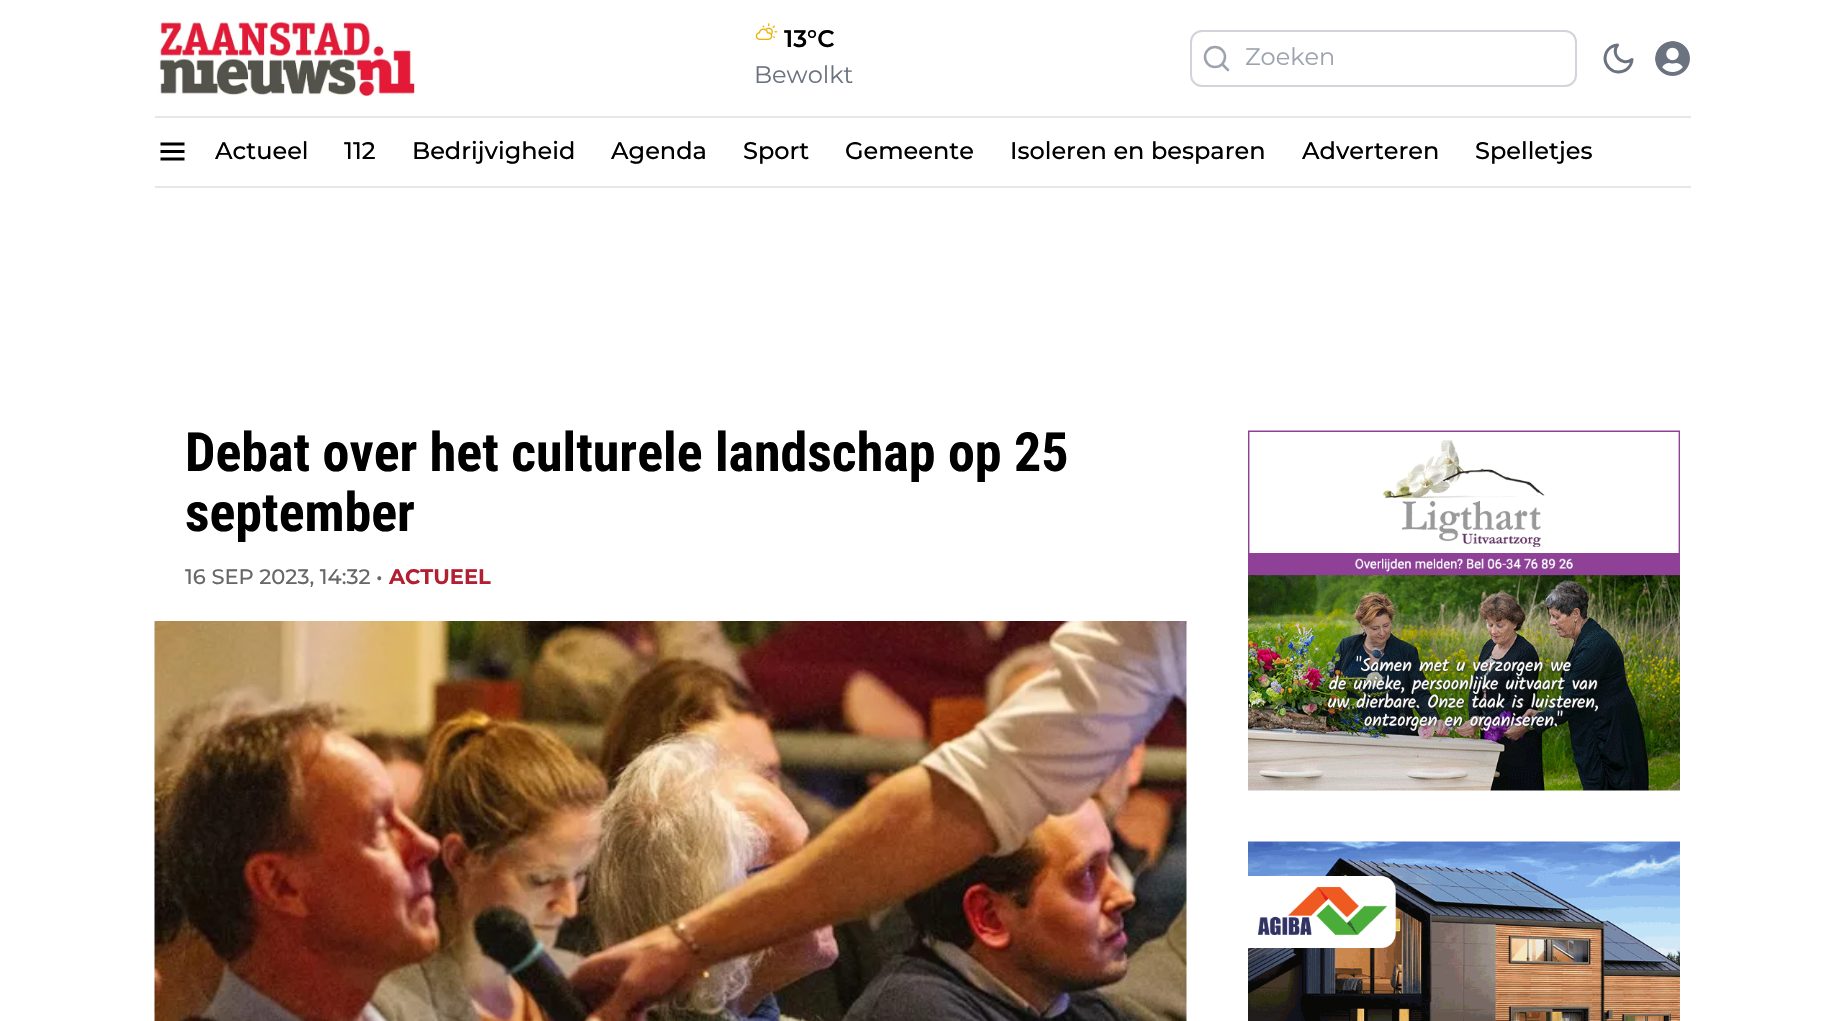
void draw(SkCanvas* canvas) {
	SkPaint fill;
	fill.setAntiAlias(true);
	auto makeFont = [&](const char* family, int weight, float size, bool italic = false) {
		SkFontStyle style(weight, SkFontStyle::kNormal_Width,
			italic ? SkFontStyle::kItalic_Slant : SkFontStyle::kUpright_Slant);
		SkFont result(fontMgr->matchFamilyStyle(family, style), size);
		result.setSubpixel(true);
		return result;
	};
	auto text = [&](const char* s, float x, float y, const SkFont& font) {
		canvas->drawString(s, x, y, font, fill);
	};
	auto box = [&](float l, float t, float r, float b) {
		canvas->drawRect(SkRect::MakeLTRB(l, t, r, b), fill);
	};
	auto picture = [&](const char* path, float l, float t, float r, float b) {
		auto image = SkImages::DeferredFromEncodedData(SkData::MakeFromFileName(path));
		canvas->drawImageRect(image, SkRect::MakeLTRB(l, t, r, b), SkSamplingOptions());
	};
	canvas->clear(0xFFFFFFFF);
	picture("image0.png", 159, 21, 416, 97);
	picture("image1.png", 755, 23, 778, 40);
	fill.setStyle(SkPaint::kStroke_Style);
	fill.setStrokeWidth(2);
	fill.setColor(0xFFD1D5DB);
	canvas->drawRoundRect(SkRect::MakeLTRB(1191, 31, 1576, 86), 11, 11, fill);
	fill.setStrokeWidth(2.5f);
	fill.setColor(0xFF9CA3AF);
	canvas->drawCircle(1215, 57, 10, fill);
	fill.setStrokeCap(SkPaint::kRound_Cap);
	fill.setStrokeJoin(SkPaint::kRound_Join);
	canvas->drawPath(SkPathBuilder().moveTo(1228, 70).lineTo(1222.5f, 64.5f).detach(), fill);
	fill.setStrokeWidth(3);
	fill.setColor(0xFF6B7280);
	canvas->drawPath(SkPathBuilder().moveTo(1632, 59.5f).cubicTo(1631.5f, 67, 1625.5f, 72, 1618, 72).cubicTo(1611, 71.5f, 1605.5f, 66, 1605, 59).cubicTo(1605, 51.5f, 1610, 45.5f, 1617.5f, 45).cubicTo(1610, 54.5f, 1622.5f, 67, 1632, 59.5f).close().detach(), fill);
	picture("image2.png", 1655, 41, 1690, 76);
	fill.setStyle(SkPaint::kFill_Style);
	fill.setColor(0xFFE5E7EB);
	box(155, 116, 1691, 118);
	box(155, 186, 1691, 188);
	picture("image3.png", 160, 142, 185, 161);
	picture("image4.png", 154, 621, 1187, 1021);
	picture("image5.png", 1248, 430, 1680, 791);
	picture("image6.png", 1248, 841, 1680, 1021);
	auto font1 = makeFont("Montserrat", 600, 24);
	fill.setColor(0xFF000000);
	text("13°C", 784, 47, font1);
	auto font2 = makeFont("Montserrat", 400, 24);
	fill.setColor(0xFF6B7280);
	text("Bewolkt", 754, 83, font2);
	fill.setColor(0xFF9CA3AF);
	text("Zoeken", 1245, 65, font2);
	auto font3 = makeFont("Montserrat", 500, 24);
	fill.setColor(0xFF000000);
	text("Actueel", 215, 159, font3);
	text("112", 344, 159, font3);
	text("Bedrijvigheid", 412, 159, font3);
	text("Agenda", 611, 159, font3);
	text("Sport", 743, 159, font3);
	text("Gemeente", 845, 159, font3);
	text("Isoleren en besparen", 1010, 159, font3);
	text("Adverteren", 1302, 159, font3);
	text("Spelletjes", 1475, 159, font3);
	auto font4 = makeFont("Roboto Condensed", 700, 54);
	text("Debat over het culturele landschap op 25", 185, 471, font4);
	text("september", 185, 531, font4);
	auto font5 = makeFont("Montserrat", 500, 21);
	fill.setColor(0xFF666869);
	text("16 SEP 2023, 14:32", 185, 584, font5);
	text("•", 376, 584, font5);
	auto font6 = makeFont("Montserrat", 700, 21);
	fill.setColor(0xFFB21F31);
	text("ACTUEEL", 389, 584, font6);
}
